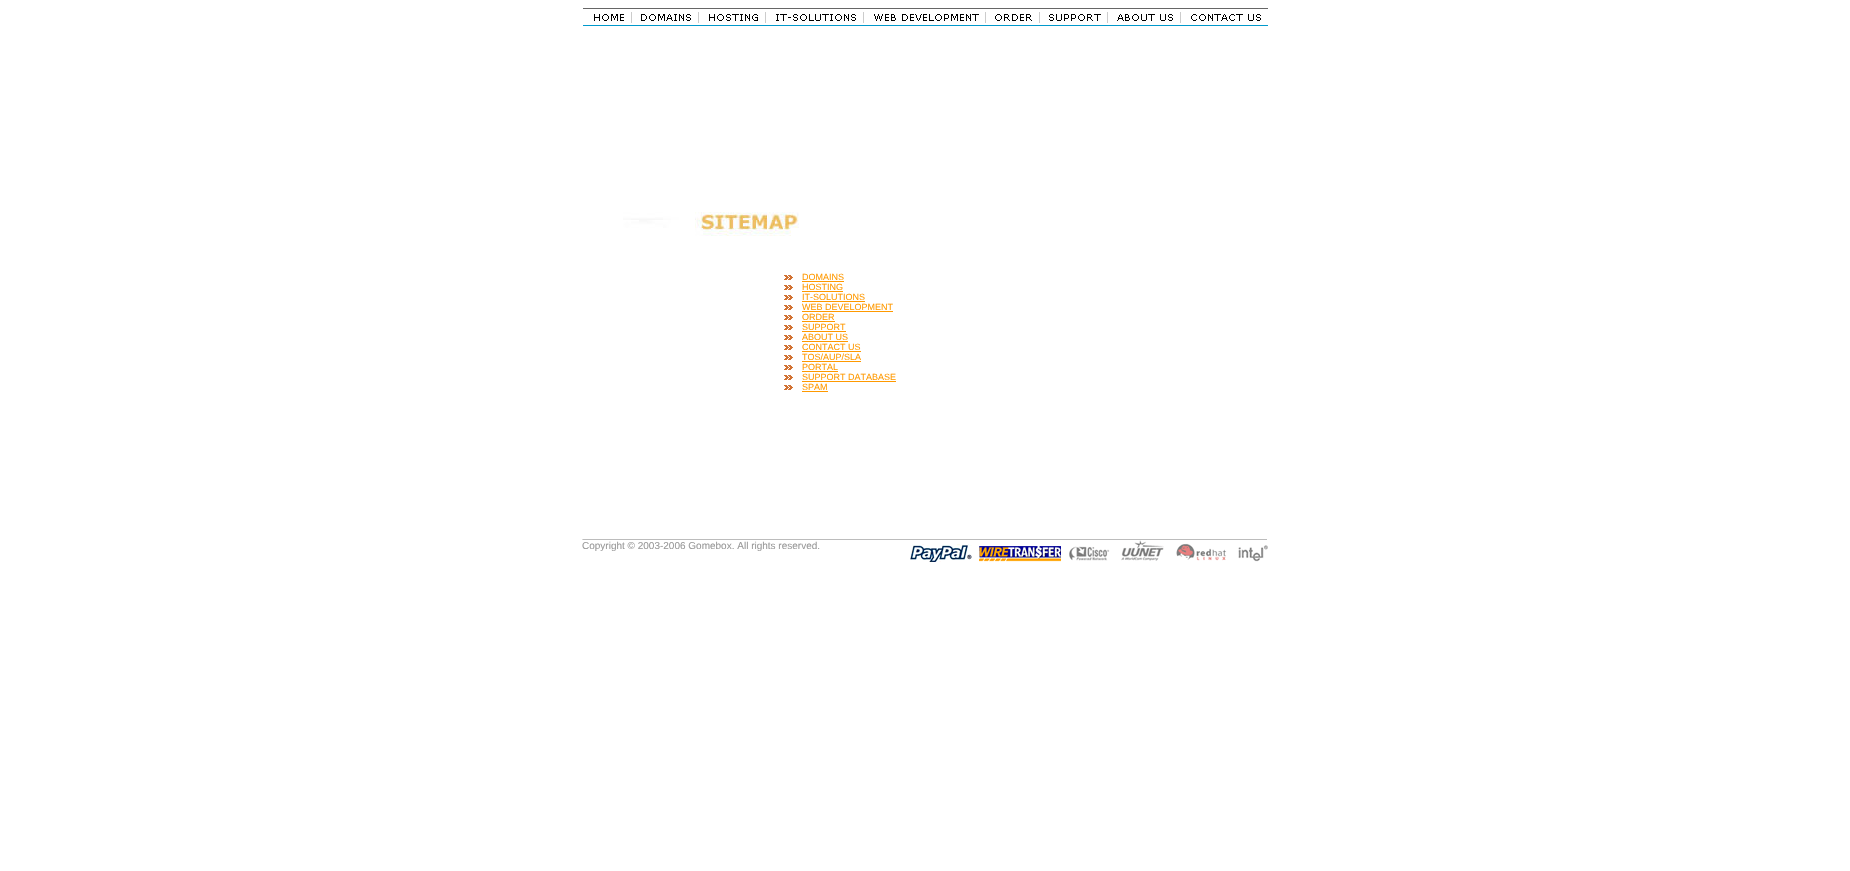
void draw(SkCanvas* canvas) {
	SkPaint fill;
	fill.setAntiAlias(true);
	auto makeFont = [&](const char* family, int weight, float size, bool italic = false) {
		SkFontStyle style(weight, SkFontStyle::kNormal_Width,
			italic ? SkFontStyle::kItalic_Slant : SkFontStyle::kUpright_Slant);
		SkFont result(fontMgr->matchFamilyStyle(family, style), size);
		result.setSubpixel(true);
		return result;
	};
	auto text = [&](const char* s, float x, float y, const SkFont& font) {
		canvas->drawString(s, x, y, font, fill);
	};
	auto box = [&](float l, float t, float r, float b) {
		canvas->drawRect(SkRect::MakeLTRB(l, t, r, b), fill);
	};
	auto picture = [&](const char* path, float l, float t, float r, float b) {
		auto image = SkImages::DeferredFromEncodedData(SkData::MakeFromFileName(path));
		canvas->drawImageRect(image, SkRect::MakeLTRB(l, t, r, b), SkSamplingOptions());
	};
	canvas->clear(0xFFFFFFFF);
	picture("image0.png", 583, 8, 633, 26);
	picture("image1.png", 633, 8, 703, 26);
	picture("image2.png", 703, 8, 773, 26);
	picture("image3.png", 773, 8, 873, 26);
	picture("image4.png", 873, 8, 993, 26);
	picture("image5.png", 993, 8, 1043, 26);
	picture("image6.png", 1043, 8, 1113, 26);
	picture("image7.png", 1113, 8, 1188, 26);
	picture("image8.png", 1188, 8, 1268, 26);
	picture("image9.png", 623, 212, 799, 236);
	picture("image10.png", 784, 275, 793, 280);
	fill.setColor(0xFFFF9900);
	box(802, 281, 844, 282);
	picture("image10.png", 784, 285, 793, 290);
	box(802, 291, 843, 292);
	picture("image10.png", 784, 295, 793, 300);
	box(802, 301, 865, 302);
	picture("image10.png", 784, 305, 793, 310);
	box(802, 311, 893, 312);
	picture("image10.png", 784, 315, 793, 320);
	box(802, 321, 835, 322);
	picture("image10.png", 784, 325, 793, 330);
	box(802, 331, 846, 332);
	picture("image10.png", 784, 335, 793, 340);
	box(802, 341, 848, 342);
	picture("image10.png", 784, 345, 793, 350);
	box(802, 351, 861, 352);
	picture("image10.png", 784, 355, 793, 360);
	box(802, 361, 861, 362);
	picture("image10.png", 784, 365, 793, 370);
	box(802, 371, 838, 372);
	picture("image10.png", 784, 375, 793, 380);
	box(802, 381, 896, 382);
	picture("image10.png", 784, 385, 793, 390);
	box(802, 391, 828, 392);
	picture("image11.png", 582, 539, 1267, 540);
	picture("image12.png", 910, 544, 1061, 562);
	picture("image13.png", 1069, 540, 1268, 562);
	auto font1 = makeFont("Liberation Sans", 400, 9);
	text("DOMAINS", 802, 280, font1);
	text("HOSTING", 802, 290, font1);
	text("IT-SOLUTIONS", 802, 300, font1);
	text("WEB DEVELOPMENT", 802, 310, font1);
	text("ORDER", 802, 320, font1);
	text("SUPPORT", 802, 330, font1);
	text("ABOUT US", 802, 340, font1);
	text("CONTACT US", 802, 350, font1);
	text("TOS/AUP/SLA", 802, 360, font1);
	text("PORTAL", 802, 370, font1);
	text("SUPPORT DATABASE", 802, 380, font1);
	text("SPAM", 802, 390, font1);
	auto font2 = makeFont("Liberation Sans", 400, 10);
	fill.setColor(0xFF999999);
	text("Copyright © 2003-2006 Gomebox. All rights reserved.", 582, 549, font2);
}
